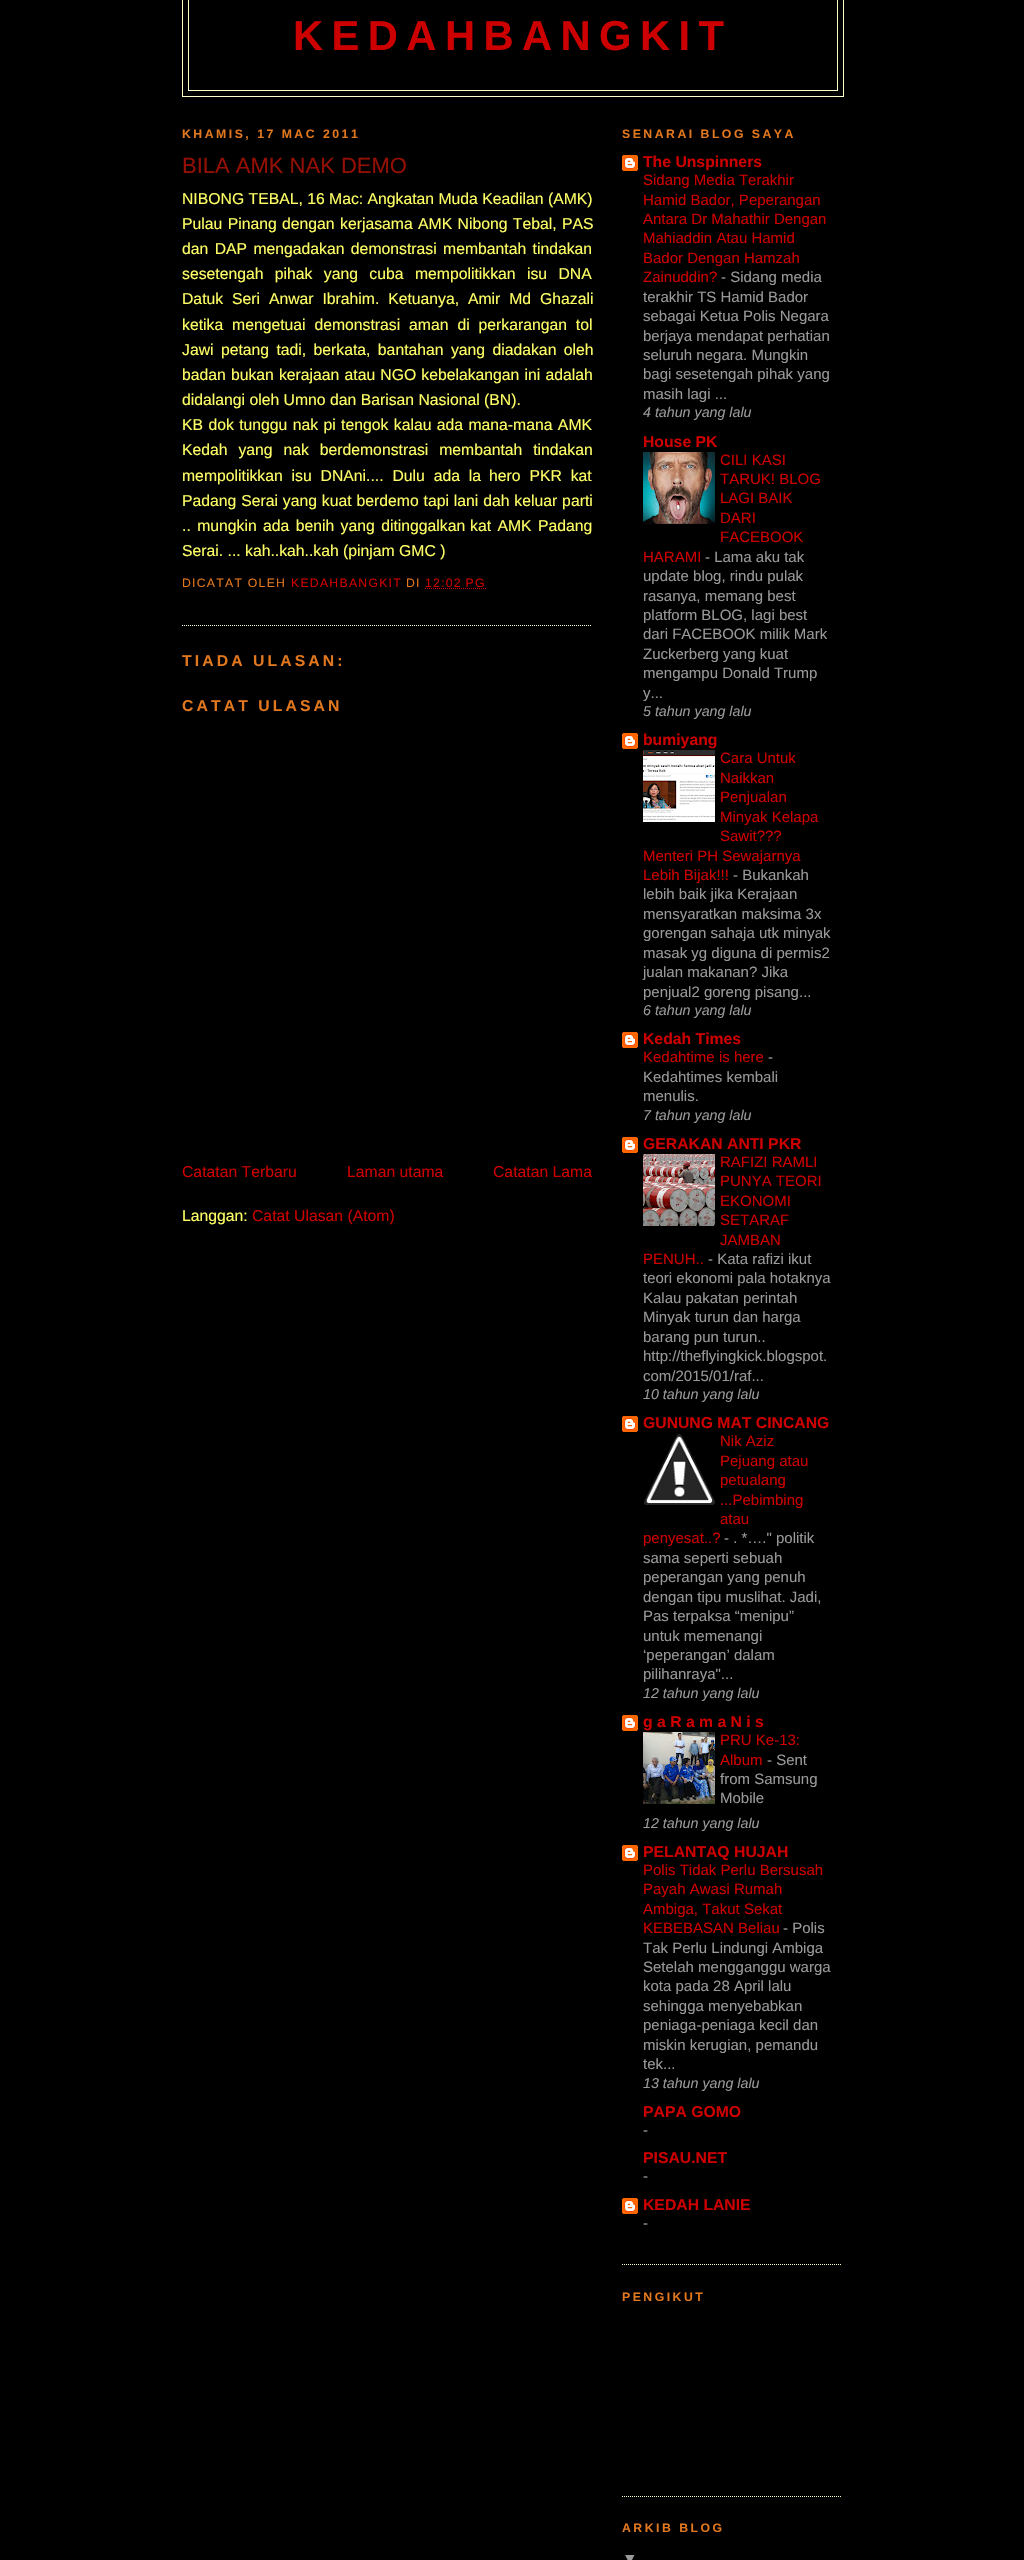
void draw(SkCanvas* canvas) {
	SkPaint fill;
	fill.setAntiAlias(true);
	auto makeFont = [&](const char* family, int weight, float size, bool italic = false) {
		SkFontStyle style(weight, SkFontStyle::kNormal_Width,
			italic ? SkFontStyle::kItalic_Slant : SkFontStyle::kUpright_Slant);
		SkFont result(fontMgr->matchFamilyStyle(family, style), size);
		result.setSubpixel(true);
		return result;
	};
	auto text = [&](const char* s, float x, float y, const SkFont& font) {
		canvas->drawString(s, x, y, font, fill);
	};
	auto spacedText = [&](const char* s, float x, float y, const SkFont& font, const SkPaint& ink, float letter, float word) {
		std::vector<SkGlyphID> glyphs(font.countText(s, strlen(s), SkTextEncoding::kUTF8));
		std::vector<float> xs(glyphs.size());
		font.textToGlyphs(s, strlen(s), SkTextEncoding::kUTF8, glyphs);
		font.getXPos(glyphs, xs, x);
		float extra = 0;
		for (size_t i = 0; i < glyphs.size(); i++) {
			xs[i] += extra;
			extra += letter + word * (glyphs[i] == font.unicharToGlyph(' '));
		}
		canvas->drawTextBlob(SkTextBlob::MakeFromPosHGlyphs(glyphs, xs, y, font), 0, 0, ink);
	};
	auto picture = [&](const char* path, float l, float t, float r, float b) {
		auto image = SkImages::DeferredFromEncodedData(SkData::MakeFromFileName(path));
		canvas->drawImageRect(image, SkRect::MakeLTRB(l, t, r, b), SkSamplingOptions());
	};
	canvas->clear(0xFF000000);
	fill.setStyle(SkPaint::kStroke_Style);
	fill.setStrokeWidth(1);
	fill.setColor(0xFFFFFFCC);
	canvas->drawRect(SkRect::MakeLTRB(182.5f, -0.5f, 843.5f, 96.5f), fill);
	canvas->drawRect(SkRect::MakeLTRB(188.5f, -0.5f, 837.5f, 90.5f), fill);
	fill.setPathEffect(SkDashPathEffect::Make({{1, 1}}, 0));
	canvas->drawPath(SkPathBuilder().moveTo(182, 625.5f).lineTo(592, 625.5f).detach(), fill);
	fill.setPathEffect(nullptr);
	fill.setColor(0xFFCC0000);
	fill.setPathEffect(SkDashPathEffect::Make({{1, 1}}, 0));
	canvas->drawPath(SkPathBuilder().moveTo(425, 588.5f).lineTo(486, 588.5f).detach(), fill);
	fill.setPathEffect(nullptr);
	fill.setColor(0xFFFFFFCC);
	fill.setPathEffect(SkDashPathEffect::Make({{1, 1}}, 0));
	canvas->drawPath(SkPathBuilder().moveTo(622, 2264.5f).lineTo(842, 2264.5f).detach(), fill);
	fill.setPathEffect(nullptr);
	picture("image0.png", 622, 155, 638, 171);
	picture("image1.png", 643, 452, 715, 524);
	picture("image0.png", 622, 733, 638, 749);
	picture("image2.png", 643, 750, 715, 822);
	picture("image0.png", 622, 1032, 638, 1048);
	picture("image0.png", 622, 1137, 638, 1153);
	picture("image3.png", 643, 1154, 715, 1226);
	picture("image0.png", 622, 1416, 638, 1432);
	picture("image4.png", 644, 1434, 715, 1505);
	picture("image0.png", 622, 1715, 638, 1731);
	picture("image5.png", 643, 1732, 715, 1804);
	picture("image0.png", 622, 1845, 638, 1861);
	picture("image0.png", 622, 2198, 638, 2214);
	fill.setPathEffect(SkDashPathEffect::Make({{1, 1}}, 0));
	canvas->drawPath(SkPathBuilder().moveTo(622, 2496.5f).lineTo(842, 2496.5f).detach(), fill);
	fill.setPathEffect(nullptr);
	auto font1 = makeFont("Liberation Sans", 700, 41.75f);
	fill.setStyle(SkPaint::kFill_Style);
	fill.setColor(0xFFCC0000);
	spacedText("KEDAHBANGKIT", 293, 50, font1, fill, 8.4f, 0);
	auto font2 = makeFont("Liberation Sans", 700, 12.25f);
	fill.setColor(0xFFE1771E);
	spacedText("KHAMIS, 17 MAC 2011", 182, 138, font2, fill, 2.5f, 0);
	auto font3 = makeFont("Liberation Sans", 400, 22);
	fill.setColor(0xFF940F04);
	text("BILA AMK NAK DEMO", 182, 173, font3);
	auto font4 = makeFont("Liberation Sans", 400, 15.75f);
	fill.setColor(0xFFFFFF66);
	text("NIBONG TEBAL, 16 Mac: Angkatan Muda Keadilan (AMK)", 182, 204, font4);
	spacedText("Pulau Pinang dengan kerjasama AMK Nibong Tebal, PAS", 182, 229, font4, fill, 0, 1);
	spacedText("dan DAP mengadakan demonstrasi membantah tindakan", 182, 254, font4, fill, 0, 2);
	spacedText("sesetengah pihak yang cuba mempolitikkan isu DNA", 182, 279, font4, fill, 0, 7);
	spacedText("Datuk Seri Anwar Ibrahim. Ketuanya, Amir Md Ghazali", 182, 304, font4, fill, 0, 4.5f);
	spacedText("ketika mengetuai demonstrasi aman di perkarangan tol", 182, 330, font4, fill, 0, 4.5f);
	spacedText("Jawi petang tadi, berkata, bantahan yang diadakan oleh", 182, 355, font4, fill, 0, 3);
	spacedText("badan bukan kerajaan atau NGO kebelakangan ini adalah", 182, 380, font4, fill, 0, 0.75f);
	text("didalangi oleh Umno dan Barisan Nasional (BN).", 182, 405, font4);
	spacedText("KB dok tunggu nak pi tengok kalau ada mana-mana AMK", 182, 430, font4, fill, 0, 1);
	spacedText("Kedah yang nak berdemonstrasi membantah tindakan", 182, 455, font4, fill, 0, 6.5f);
	spacedText("mempolitikkan isu DNAni.... Dulu ada la", 182, 481, font4, fill, 0, 4.5f);
	spacedText("hero PKR kat", 489, 481, font4, fill, 0, 4.5f);
	spacedText("Padang Serai yang kuat berdemo tapi lani dah keluar parti", 182, 506, font4, fill, 0, 0.5f);
	spacedText(".. mungkin ada benih yang ditinggalkan", 182, 531, font4, fill, 0, 2);
	spacedText("kat AMK Padang", 470, 531, font4, fill, 0, 2);
	text("Serai. ... kah..kah..kah (pinjam GMC )", 182, 556, font4);
	auto font5 = makeFont("Liberation Sans", 400, 12.25f);
	fill.setColor(0xFFE1771E);
	spacedText("DICATAT OLEH", 182, 587, font5, fill, 1.25f, 0);
	fill.setColor(0xFFCC0000);
	spacedText("KEDAHBANGKIT", 291, 587, font5, fill, 1.25f, 0);
	fill.setColor(0xFFE1771E);
	spacedText("DI", 406, 587, font5, fill, 1.25f, 0);
	fill.setColor(0xFFCC0000);
	spacedText("12:02 PG", 425, 587, font5, fill, 1.25f, 0);
	auto font6 = makeFont("Liberation Sans", 700, 15.75f);
	fill.setColor(0xFFE1771E);
	spacedText("TIADA ULASAN:", 182, 666, font6, fill, 3.1f, 0);
	spacedText("CATAT ULASAN", 182, 711, font6, fill, 3.1f, 0);
	fill.setColor(0xFFCC0000);
	text("Catatan Terbaru", 182, 1177, font4);
	text("Laman utama", 347, 1177, font4);
	text("Catatan Lama", 493, 1177, font4);
	fill.setColor(0xFFFFFF66);
	text("Langgan:", 182, 1221, font4);
	fill.setColor(0xFFCC0000);
	text("Catat Ulasan (Atom)", 252, 1221, font4);
	fill.setColor(0xFFE1771E);
	spacedText("SENARAI BLOG SAYA", 622, 138, font2, fill, 2.5f, 0);
	fill.setColor(0xFFCC0000);
	text("The Unspinners", 643, 167, font6);
	auto font7 = makeFont("Liberation Sans", 400, 15);
	text("Sidang Media Terakhir", 643, 185, font7);
	text("Hamid Bador, Peperangan", 643, 205, font7);
	text("Antara Dr Mahathir Dengan", 643, 224, font7);
	text("Mahiaddin Atau Hamid", 643, 243, font7);
	text("Bador Dengan Hamzah", 643, 263, font7);
	text("Zainuddin?", 643, 282, font7);
	fill.setColor(0xFF999999);
	text("- Sidang media", 721, 282, font7);
	text("terakhir TS Hamid Bador", 643, 302, font7);
	text("sebagai Ketua Polis Negara", 643, 321, font7);
	text("berjaya mendapat perhatian", 643, 341, font7);
	text("seluruh negara. Mungkin", 643, 360, font7);
	text("bagi sesetengah pihak yang", 643, 379, font7);
	text("masih lagi ...", 643, 399, font7);
	auto font8 = makeFont("Liberation Sans", 400, 14.25f, true);
	text("4 tahun yang lalu", 643, 417, font8);
	fill.setColor(0xFFCC0000);
	text("House PK", 643, 447, font6);
	text("CILI KASI", 720, 465, font7);
	text("TARUK! BLOG", 720, 484, font7);
	text("LAGI BAIK", 720, 503, font7);
	text("DARI", 720, 523, font7);
	text("FACEBOOK", 720, 542, font7);
	text("HARAMI", 643, 562, font7);
	fill.setColor(0xFF999999);
	text("- Lama aku tak", 705, 562, font7);
	text("update blog, rindu pulak", 643, 581, font7);
	text("rasanya, memang best", 643, 601, font7);
	text("platform BLOG, lagi best", 643, 620, font7);
	text("dari FACEBOOK milik Mark", 643, 639, font7);
	text("Zuckerberg yang kuat", 643, 659, font7);
	text("mengampu Donald Trump", 643, 678, font7);
	text("y...", 643, 698, font7);
	text("5 tahun yang lalu", 643, 716, font8);
	fill.setColor(0xFFCC0000);
	text("bumiyang", 643, 745, font6);
	text("Cara Untuk", 720, 763, font7);
	text("Naikkan", 720, 783, font7);
	text("Penjualan", 720, 802, font7);
	text("Minyak Kelapa", 720, 822, font7);
	text("Sawit?\077?", 720, 841, font7);
	text("Menteri PH Sewajarnya", 643, 861, font7);
	text("Lebih Bijak!!!", 643, 880, font7);
	fill.setColor(0xFF999999);
	text("- Bukankah", 733, 880, font7);
	text("lebih baik jika Kerajaan", 643, 899, font7);
	text("mensyaratkan maksima 3x", 643, 919, font7);
	text("gorengan sahaja utk minyak", 643, 938, font7);
	text("masak yg diguna di permis2", 643, 958, font7);
	text("jualan makanan? Jika", 643, 977, font7);
	text("penjual2 goreng pisang...", 643, 997, font7);
	text("6 tahun yang lalu", 643, 1015, font8);
	fill.setColor(0xFFCC0000);
	text("Kedah Times", 643, 1044, font6);
	text("Kedahtime is here", 643, 1062, font7);
	fill.setColor(0xFF999999);
	text("-", 768, 1062, font7);
	text("Kedahtimes kembali", 643, 1082, font7);
	text("menulis.", 643, 1101, font7);
	text("7 tahun yang lalu", 643, 1120, font8);
	fill.setColor(0xFFCC0000);
	text("GERAKAN ANTI PKR", 643, 1149, font6);
	text("RAFIZI RAMLI", 720, 1167, font7);
	text("PUNYA TEORI", 720, 1186, font7);
	text("EKONOMI", 720, 1206, font7);
	text("SETARAF", 720, 1225, font7);
	text("JAMBAN", 720, 1245, font7);
	text("PENUH..", 643, 1264, font7);
	fill.setColor(0xFF999999);
	text("- Kata rafizi ikut", 708, 1264, font7);
	text("teori ekonomi pala hotaknya", 643, 1283, font7);
	text("Kalau pakatan perintah", 643, 1303, font7);
	text("Minyak turun dan harga", 643, 1322, font7);
	text("barang pun turun..", 643, 1342, font7);
	text("http://theflyingkick.blogspot.", 643, 1361, font7);
	text("com/2015/01/raf...", 643, 1381, font7);
	text("10 tahun yang lalu", 643, 1399, font8);
	fill.setColor(0xFFCC0000);
	text("GUNUNG MAT CINCANG", 643, 1428, font6);
	text("Nik Aziz", 720, 1446, font7);
	text("Pejuang atau", 720, 1466, font7);
	text("petualang", 720, 1485, font7);
	text("...Pebimbing", 720, 1505, font7);
	text("atau", 720, 1524, font7);
	text("penyesat..?", 643, 1543, font7);
	fill.setColor(0xFF999999);
	text("- . *….\" politik", 724, 1543, font7);
	text("sama seperti sebuah", 643, 1563, font7);
	text("peperangan yang penuh", 643, 1582, font7);
	text("dengan tipu muslihat. Jadi,", 643, 1602, font7);
	text("Pas terpaksa “menipu”", 643, 1621, font7);
	text("untuk memenangi", 643, 1641, font7);
	text("‘peperangan’ dalam", 643, 1660, font7);
	text("pilihanraya\"...", 643, 1679, font7);
	text("12 tahun yang lalu", 643, 1698, font8);
	fill.setColor(0xFFCC0000);
	text("g a R a m a N i s", 643, 1727, font6);
	text("PRU Ke-13:", 720, 1745, font7);
	text("Album", 720, 1765, font7);
	fill.setColor(0xFF999999);
	text("- Sent", 767, 1765, font7);
	text("from Samsung", 720, 1784, font7);
	text("Mobile", 720, 1803, font7);
	text("12 tahun yang lalu", 643, 1828, font8);
	fill.setColor(0xFFCC0000);
	text("PELANTAQ HUJAH", 643, 1857, font6);
	text("Polis Tidak Perlu Bersusah", 643, 1875, font7);
	text("Payah Awasi Rumah", 643, 1894, font7);
	text("Ambiga, Takut Sekat", 643, 1914, font7);
	text("KEBEBASAN Beliau", 643, 1933, font7);
	fill.setColor(0xFF999999);
	text("- Polis", 783, 1933, font7);
	text("Tak Perlu Lindungi Ambiga", 643, 1953, font7);
	text("Setelah mengganggu warga", 643, 1972, font7);
	text("kota pada 28 April lalu", 643, 1991, font7);
	text("sehingga menyebabkan", 643, 2011, font7);
	text("peniaga-peniaga kecil dan", 643, 2030, font7);
	text("miskin kerugian, pemandu", 643, 2050, font7);
	text("tek...", 643, 2069, font7);
	text("13 tahun yang lalu", 643, 2088, font8);
	fill.setColor(0xFFCC0000);
	text("PAPA GOMO", 643, 2117, font6);
	fill.setColor(0xFF999999);
	text("-", 643, 2135, font7);
	fill.setColor(0xFFCC0000);
	text("PISAU.NET", 643, 2163, font6);
	fill.setColor(0xFF999999);
	text("-", 643, 2181, font7);
	fill.setColor(0xFFCC0000);
	text("KEDAH LANIE", 643, 2210, font6);
	fill.setColor(0xFF999999);
	text("-", 643, 2228, font7);
	fill.setColor(0xFFE1771E);
	spacedText("PENGIKUT", 622, 2301, font2, fill, 2.5f, 0);
	spacedText("ARKIB BLOG", 622, 2532, font2, fill, 2.5f, 0);
	fill.setColor(0xFF999999);
	text("▼", 622, 2564, font4);
}
